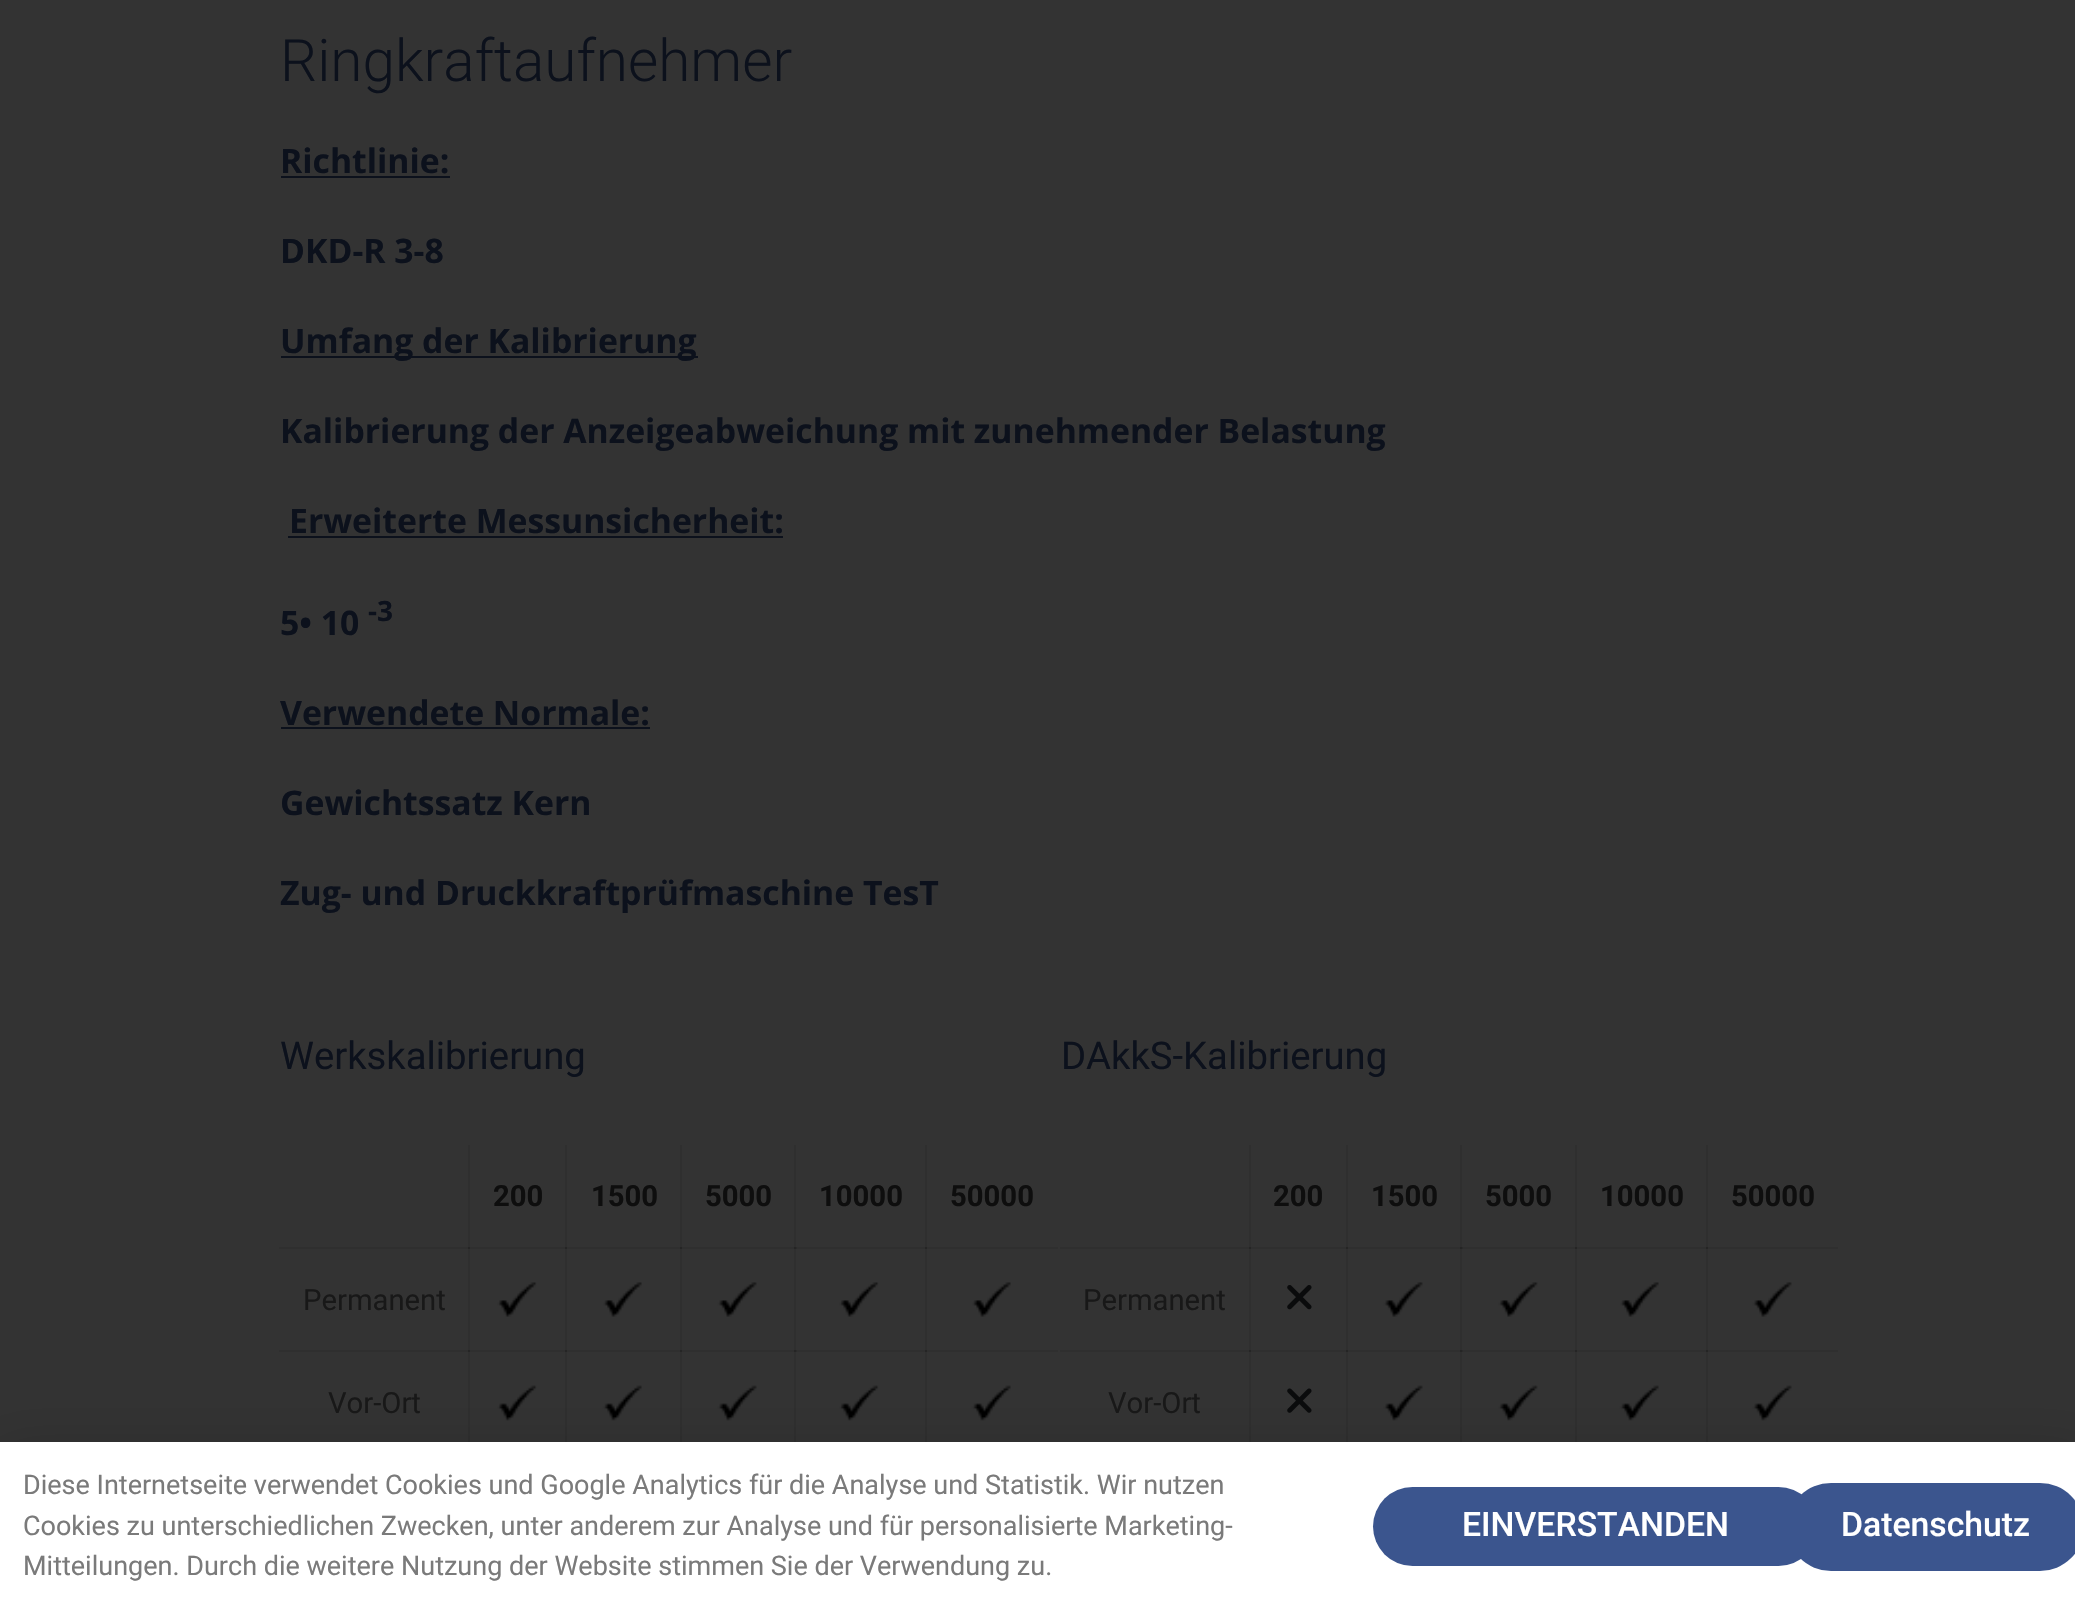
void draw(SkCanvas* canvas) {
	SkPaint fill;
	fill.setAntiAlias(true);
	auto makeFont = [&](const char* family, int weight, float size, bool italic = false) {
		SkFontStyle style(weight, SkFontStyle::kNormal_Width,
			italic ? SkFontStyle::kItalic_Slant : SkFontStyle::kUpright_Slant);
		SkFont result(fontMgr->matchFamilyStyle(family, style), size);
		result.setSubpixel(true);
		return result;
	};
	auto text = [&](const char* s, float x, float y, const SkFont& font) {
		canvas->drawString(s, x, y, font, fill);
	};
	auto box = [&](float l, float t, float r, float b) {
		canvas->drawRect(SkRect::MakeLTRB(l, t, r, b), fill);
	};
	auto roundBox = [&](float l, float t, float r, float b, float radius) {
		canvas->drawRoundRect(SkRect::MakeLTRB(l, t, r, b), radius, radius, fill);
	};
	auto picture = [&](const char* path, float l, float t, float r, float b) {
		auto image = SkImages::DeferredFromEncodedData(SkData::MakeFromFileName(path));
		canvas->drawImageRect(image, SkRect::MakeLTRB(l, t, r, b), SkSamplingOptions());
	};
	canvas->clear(0xFF333333);
	fill.setColor(0xFF2F2F2F);
	box(1060, 1247, 1251, 1249);
	box(1249, 1145, 1251, 1249);
	box(1249, 1247, 1348, 1249);
	box(1346, 1145, 1348, 1249);
	box(1346, 1247, 1463, 1249);
	box(1460, 1145, 1462, 1249);
	box(1460, 1247, 1577, 1249);
	fill.setColor(0xFF2B2B2B);
	box(1460, 1247, 1463, 1249);
	fill.setColor(0xFF2F2F2F);
	box(1575, 1145, 1577, 1249);
	box(1575, 1247, 1708, 1249);
	box(1706, 1145, 1708, 1249);
	box(1706, 1247, 1838, 1249);
	box(1060, 1350, 1251, 1352);
	box(1249, 1247, 1251, 1352);
	fill.setColor(0xFF252525);
	box(1249, 1247, 1251, 1249);
	fill.setColor(0xFF2F2F2F);
	box(1249, 1350, 1348, 1352);
	box(1346, 1247, 1348, 1352);
	fill.setColor(0xFF252525);
	box(1346, 1247, 1348, 1249);
	fill.setColor(0xFF2F2F2F);
	box(1346, 1350, 1463, 1352);
	box(1460, 1247, 1462, 1352);
	fill.setColor(0xFF252525);
	box(1460, 1247, 1462, 1249);
	fill.setColor(0xFF2F2F2F);
	box(1460, 1350, 1577, 1352);
	fill.setColor(0xFF2B2B2B);
	box(1460, 1350, 1463, 1352);
	fill.setColor(0xFF2F2F2F);
	box(1575, 1247, 1577, 1352);
	fill.setColor(0xFF252525);
	box(1575, 1247, 1577, 1249);
	fill.setColor(0xFF2F2F2F);
	box(1575, 1350, 1708, 1352);
	box(1706, 1247, 1708, 1352);
	fill.setColor(0xFF252525);
	box(1706, 1247, 1708, 1249);
	fill.setColor(0xFF2F2F2F);
	box(1706, 1350, 1838, 1352);
	box(1249, 1350, 1251, 1442);
	fill.setColor(0xFF252525);
	box(1249, 1350, 1251, 1352);
	fill.setColor(0xFF2F2F2F);
	box(1346, 1350, 1348, 1442);
	fill.setColor(0xFF252525);
	box(1346, 1350, 1348, 1352);
	fill.setColor(0xFF2F2F2F);
	box(1460, 1350, 1462, 1442);
	fill.setColor(0xFF252525);
	box(1460, 1350, 1462, 1352);
	fill.setColor(0xFF2F2F2F);
	box(1575, 1350, 1577, 1442);
	fill.setColor(0xFF252525);
	box(1575, 1350, 1577, 1352);
	fill.setColor(0xFF2F2F2F);
	box(1706, 1350, 1708, 1442);
	fill.setColor(0xFF252525);
	box(1706, 1350, 1708, 1352);
	fill.setColor(0xFF2F2F2F);
	box(279, 1247, 470, 1249);
	box(468, 1145, 470, 1249);
	box(468, 1247, 567, 1249);
	box(565, 1145, 567, 1249);
	box(565, 1247, 682, 1249);
	box(680, 1145, 682, 1249);
	box(680, 1247, 797, 1249);
	box(794, 1145, 796, 1249);
	box(794, 1247, 927, 1249);
	fill.setColor(0xFF2B2B2B);
	box(794, 1247, 797, 1249);
	fill.setColor(0xFF2F2F2F);
	box(925, 1145, 927, 1249);
	box(925, 1247, 1058, 1249);
	box(279, 1350, 470, 1352);
	box(468, 1247, 470, 1352);
	fill.setColor(0xFF252525);
	box(468, 1247, 470, 1249);
	fill.setColor(0xFF2F2F2F);
	box(468, 1350, 567, 1352);
	box(565, 1247, 567, 1352);
	fill.setColor(0xFF252525);
	box(565, 1247, 567, 1249);
	fill.setColor(0xFF2F2F2F);
	box(565, 1350, 682, 1352);
	box(680, 1247, 682, 1352);
	fill.setColor(0xFF252525);
	box(680, 1247, 682, 1249);
	fill.setColor(0xFF2F2F2F);
	box(680, 1350, 797, 1352);
	box(794, 1247, 796, 1352);
	fill.setColor(0xFF252525);
	box(794, 1247, 796, 1249);
	fill.setColor(0xFF2F2F2F);
	box(794, 1350, 927, 1352);
	fill.setColor(0xFF2B2B2B);
	box(794, 1350, 797, 1352);
	fill.setColor(0xFF2F2F2F);
	box(925, 1247, 927, 1352);
	fill.setColor(0xFF252525);
	box(925, 1247, 927, 1249);
	fill.setColor(0xFF2F2F2F);
	box(925, 1350, 1058, 1352);
	box(468, 1350, 470, 1442);
	fill.setColor(0xFF252525);
	box(468, 1350, 470, 1352);
	fill.setColor(0xFF2F2F2F);
	box(565, 1350, 567, 1442);
	fill.setColor(0xFF252525);
	box(565, 1350, 567, 1352);
	fill.setColor(0xFF2F2F2F);
	box(680, 1350, 682, 1442);
	fill.setColor(0xFF252525);
	box(680, 1350, 682, 1352);
	fill.setColor(0xFF2F2F2F);
	box(794, 1350, 796, 1442);
	fill.setColor(0xFF252525);
	box(794, 1350, 796, 1352);
	fill.setColor(0xFF2F2F2F);
	box(925, 1350, 927, 1442);
	fill.setColor(0xFF252525);
	box(925, 1350, 927, 1352);
	fill.setColor(0xFF0C111C);
	box(281, 176, 450, 178);
	box(281, 356, 698, 358);
	box(288, 536, 783, 538);
	box(281, 727, 650, 729);
	picture("image0.png", 497, 1282, 537, 1317);
	picture("image1.png", 603, 1282, 642, 1317);
	picture("image2.png", 717, 1282, 757, 1317);
	picture("image3.png", 839, 1282, 879, 1317);
	picture("image4.png", 972, 1282, 1011, 1317);
	picture("image5.png", 497, 1385, 537, 1421);
	picture("image6.png", 602, 1385, 642, 1421);
	picture("image7.png", 717, 1385, 757, 1421);
	picture("image8.png", 839, 1385, 879, 1421);
	picture("image9.png", 971, 1385, 1011, 1421);
	picture("image10.png", 1287, 1285, 1312, 1310);
	picture("image2.png", 1383, 1282, 1423, 1317);
	picture("image11.png", 1498, 1282, 1538, 1317);
	picture("image4.png", 1620, 1282, 1659, 1317);
	picture("image12.png", 1752, 1282, 1792, 1317);
	picture("image13.png", 1287, 1388, 1312, 1413);
	picture("image7.png", 1383, 1385, 1423, 1421);
	picture("image14.png", 1498, 1385, 1538, 1421);
	picture("image9.png", 1619, 1385, 1659, 1421);
	picture("image15.png", 1752, 1385, 1792, 1421);
	fill.setColor(0x33000000);
	fill.setMaskFilter(SkMaskFilter::MakeBlur(kNormal_SkBlurStyle, 26));
	canvas->drawRect(SkRect::MakeLTRB(-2, 1454, 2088, 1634), fill);
	fill.setMaskFilter(nullptr);
	fill.setColor(0xFFFFFFFF);
	box(0, 1442, 2075, 1608);
	fill.setColor(0xFF3B558E);
	roundBox(1373, 1487, 1818, 1566, 39.5f);
	roundBox(1787, 1483, 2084, 1571, 44);
	auto font1 = makeFont("Roboto", 300, 58.5f);
	fill.setColor(0xFF0C111C);
	text("Ringkraftaufnehmer", 280, 81, font1);
	auto font2 = makeFont("Open Sans", 700, 33.75f);
	text("Richtlinie:", 280, 173, font2);
	text("DKD-R 3-8", 280, 263, font2);
	text("Umfang der Kalibrierung", 280, 353, font2);
	text("Kalibrierung der Anzeigeabweichung mit zunehmender Belastung", 280, 443, font2);
	text("Erweiterte Messunsicherheit:", 289, 533, font2);
	text("5• 10", 280, 635, font2);
	auto font3 = makeFont("Open Sans", 700, 28);
	text("-3", 368, 621, font3);
	text("Verwendete Normale:", 280, 725, font2);
	text("Gewichtssatz Kern", 280, 815, font2);
	text("Zug- und Druckkraftprüfmaschine TesT", 280, 905, font2);
	auto font4 = makeFont("Roboto", 400, 38.25f);
	text("Werkskalibrierung", 280, 1069, font4);
	auto font5 = makeFont("Roboto", 700, 29.25f);
	fill.setColor(0xFF0E0E0E);
	text("200", 493, 1206, font5);
	text("1500", 591, 1206, font5);
	text("5000", 705, 1206, font5);
	text("10000", 819, 1206, font5);
	text("50000", 950, 1206, font5);
	auto font6 = makeFont("Roboto", 400, 29.25f);
	fill.setColor(0xFF181818);
	text("Permanent", 303, 1310, font6);
	text("Vor-Ort", 328, 1413, font6);
	fill.setColor(0xFF0C111C);
	text("DAkkS-Kalibrierung", 1061, 1069, font4);
	fill.setColor(0xFF0E0E0E);
	text("200", 1273, 1206, font5);
	text("1500", 1371, 1206, font5);
	text("5000", 1485, 1206, font5);
	text("10000", 1600, 1206, font5);
	text("50000", 1731, 1206, font5);
	fill.setColor(0xFF181818);
	text("Permanent", 1083, 1310, font6);
	text("Vor-Ort", 1108, 1413, font6);
	auto font7 = makeFont("Roboto", 400, 27);
	fill.setColor(0xFF7A7A7A);
	text("Diese Internetseite verwendet Cookies und Google Analytics für die Analyse und Statistik. Wir nutzen", 23, 1494, font7);
	text("Cookies zu unterschiedlichen Zwecken, unter anderem zur Analyse und für personalisierte Marketing-", 23, 1535, font7);
	text("Mitteilungen. Durch die weitere Nutzung der Website stimmen Sie der Verwendung zu.", 23, 1575, font7);
	auto font8 = makeFont("Roboto", 500, 33.75f);
	fill.setColor(0xFFFFFFFF);
	text("EINVERSTANDEN", 1462, 1536, font8);
	text("Datenschutz", 1841, 1536, font8);
}
